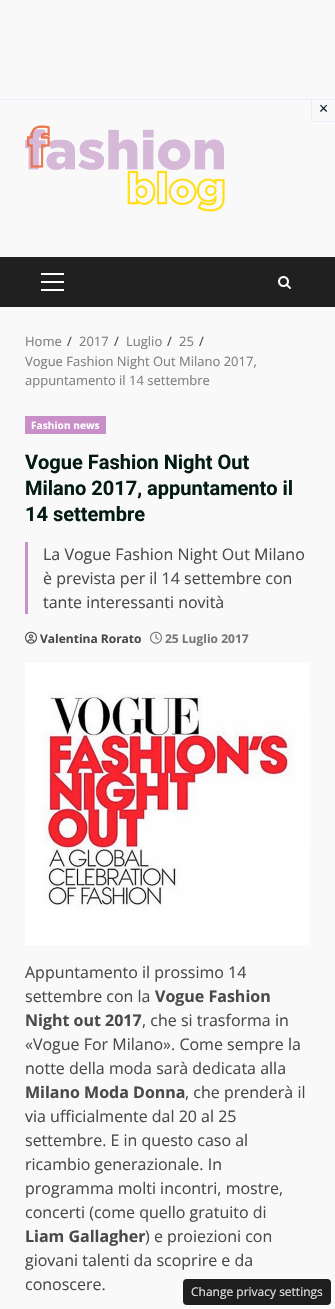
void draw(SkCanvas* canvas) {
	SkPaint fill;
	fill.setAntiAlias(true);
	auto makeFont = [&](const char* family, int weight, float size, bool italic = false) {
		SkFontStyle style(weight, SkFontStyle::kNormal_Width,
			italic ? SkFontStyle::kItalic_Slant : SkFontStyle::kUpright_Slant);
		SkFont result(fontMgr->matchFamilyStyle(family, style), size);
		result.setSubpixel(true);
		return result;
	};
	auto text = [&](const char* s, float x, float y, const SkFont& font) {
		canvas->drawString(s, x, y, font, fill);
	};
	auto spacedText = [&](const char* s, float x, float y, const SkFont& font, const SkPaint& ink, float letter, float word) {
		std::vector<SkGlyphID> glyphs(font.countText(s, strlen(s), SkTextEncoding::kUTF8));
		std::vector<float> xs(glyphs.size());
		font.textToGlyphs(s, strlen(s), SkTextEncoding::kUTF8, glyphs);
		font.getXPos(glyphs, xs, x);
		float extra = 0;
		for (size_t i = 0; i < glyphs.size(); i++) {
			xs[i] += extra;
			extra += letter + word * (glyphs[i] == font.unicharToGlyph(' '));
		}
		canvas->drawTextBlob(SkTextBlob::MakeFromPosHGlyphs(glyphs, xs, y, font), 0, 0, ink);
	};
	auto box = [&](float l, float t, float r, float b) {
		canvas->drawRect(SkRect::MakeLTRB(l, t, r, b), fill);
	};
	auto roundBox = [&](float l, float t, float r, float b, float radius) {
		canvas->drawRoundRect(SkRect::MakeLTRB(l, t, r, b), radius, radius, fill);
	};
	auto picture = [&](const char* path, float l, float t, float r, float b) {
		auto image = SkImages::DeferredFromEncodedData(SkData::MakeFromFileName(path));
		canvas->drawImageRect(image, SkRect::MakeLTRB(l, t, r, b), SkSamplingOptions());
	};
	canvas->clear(0xFFF9F9F9);
	fill.setColor(0xFFE8EEF9);
	canvas->drawPath(SkPathBuilder(SkPathFillType::kEvenOdd).moveTo(311, 98).lineTo(335, 98).lineTo(335, 122).lineTo(314, 122).cubicTo(312.5f, 122, 311, 120.5f, 311, 119).close().moveTo(312, 98).lineTo(335, 98).lineTo(335, 121).lineTo(314, 121).cubicTo(313, 121, 312, 120, 312, 119).close().detach(), fill);
	fill.setColor(0xFFFAFAFA);
	box(311, 98, 312, 99);
	fill.setColor(0xFFE8EEF9);
	box(0, 99, 335, 100);
	picture("image0.png", 25, 125, 225, 212);
	fill.setColor(0xFF202020);
	box(0, 257, 335, 307);
	fill.setColor(0xFFFFFFFF);
	box(41, 281, 64, 283);
	box(41, 273, 64, 275);
	box(41, 289, 64, 291);
	picture("image1.png", 278, 276, 291, 289);
	fill.setColor(0xFFC98FC9);
	box(25, 416, 106, 434);
	box(25, 542, 28, 614);
	picture("image2.png", 25, 631, 37, 644);
	picture("image3.png", 150, 631, 162, 644);
	picture("image4.png", 25, 663, 310, 945);
	fill.setColor(0xFF1E1E1E);
	roundBox(183, 1279, 331, 1305, 4);
	auto font1 = makeFont("Open Sans", 400, 16);
	fill.setColor(0xFF112233);
	text("×", 319, 114, font1);
	auto font2 = makeFont("Open Sans", 400, 13);
	fill.setColor(0xFF7F7F7F);
	text("Home", 25, 346, font2);
	fill.setColor(0xFF4A4A4A);
	text("/", 67, 346, font2);
	fill.setColor(0xFF7F7F7F);
	text("2017", 79, 346, font2);
	fill.setColor(0xFF4A4A4A);
	text("/", 114, 346, font2);
	fill.setColor(0xFF7F7F7F);
	text("Luglio", 126, 346, font2);
	fill.setColor(0xFF4A4A4A);
	text("/", 167, 346, font2);
	fill.setColor(0xFF7F7F7F);
	text("25", 179, 346, font2);
	fill.setColor(0xFF4A4A4A);
	text("/", 199, 346, font2);
	fill.setColor(0xFF7F7F7F);
	text("Vogue Fashion Night Out Milano 2017,", 25, 366, font2);
	text("appuntamento il 14 settembre", 25, 385, font2);
	auto font3 = makeFont("Open Sans", 700, 10);
	fill.setColor(0xFFFFFFFF);
	spacedText("Fashion news", 31, 429, font3, fill, 0.1f, 0);
	auto font4 = makeFont("Roboto", 700, 20);
	fill.setColor(0xFF031B11);
	text("Vogue Fashion Night Out", 25, 469, font4);
	text("Milano 2017, appuntamento il", 25, 495, font4);
	text("14 settembre", 25, 521, font4);
	fill.setColor(0xFF4A4A4A);
	text("La Vogue Fashion Night Out Milano", 43, 560, font1);
	text("è prevista per il 14 settembre con", 43, 584, font1);
	text("tante interessanti novità", 43, 608, font1);
	auto font5 = makeFont("Open Sans", 700, 12);
	text("Valentina Rorato", 40, 643, font5);
	fill.setColor(0xFF767676);
	text("25 Luglio 2017", 165, 643, font5);
	fill.setColor(0xFF4A4A4A);
	text("Appuntamento il prossimo 14", 25, 978, font1);
	text("settembre con la", 25, 1002, font1);
	auto font6 = makeFont("Open Sans", 700, 16);
	text("Vogue Fashion", 155, 1002, font6);
	text("Night out 2017", 25, 1026, font6);
	text(", che si trasforma in", 142, 1026, font1);
	text("«Vogue For Milano». Come sempre la", 25, 1050, font1);
	text("notte della moda sarà dedicata alla", 25, 1074, font1);
	text("Milano Moda Donna", 25, 1098, font6);
	text(", che prenderà il", 185, 1098, font1);
	text("via ufficialmente dal 20 al 25", 25, 1122, font1);
	text("settembre. E in questo caso al", 25, 1146, font1);
	text("ricambio generazionale. In", 25, 1170, font1);
	text("programma molti incontri, mostre,", 25, 1194, font1);
	text("concerti (come quello gratuito di", 25, 1218, font1);
	text("Liam Gallagher", 25, 1242, font6);
	text(") e proiezioni con", 145, 1242, font1);
	text("giovani talenti da scoprire e da", 25, 1266, font1);
	text("conoscere.", 25, 1290, font1);
	auto font7 = makeFont("Open Sans", 400, 12);
	fill.setColor(0xFFE3E1E1);
	text("Change privacy settings", 191, 1296, font7);
}
